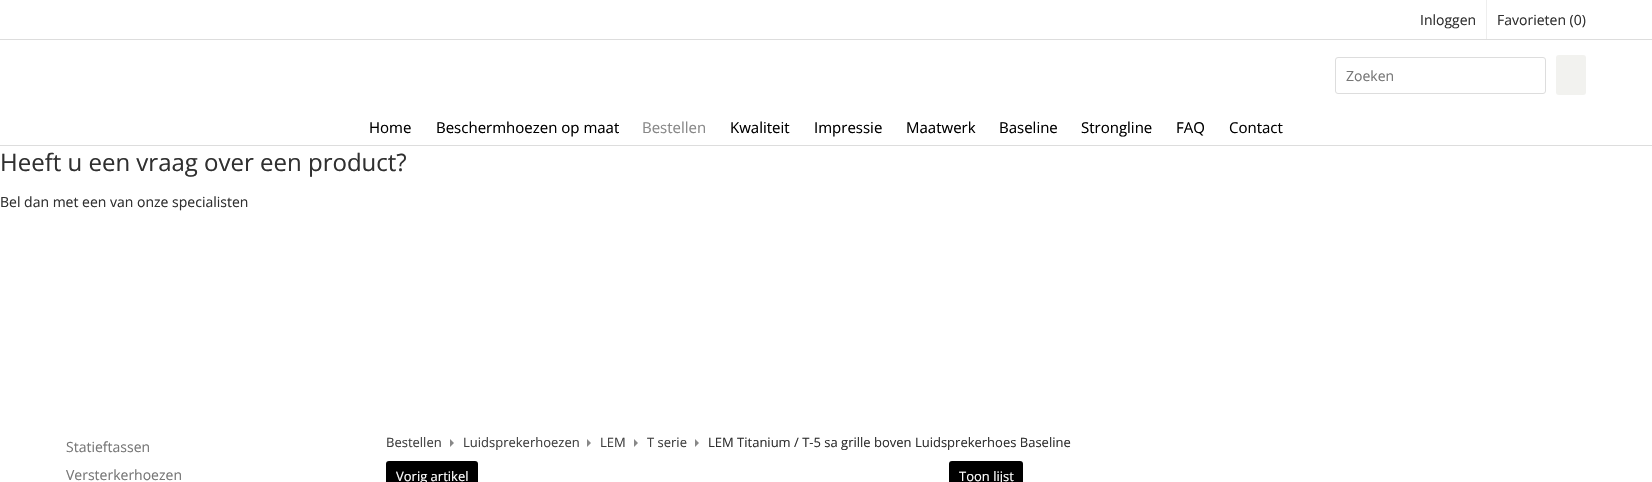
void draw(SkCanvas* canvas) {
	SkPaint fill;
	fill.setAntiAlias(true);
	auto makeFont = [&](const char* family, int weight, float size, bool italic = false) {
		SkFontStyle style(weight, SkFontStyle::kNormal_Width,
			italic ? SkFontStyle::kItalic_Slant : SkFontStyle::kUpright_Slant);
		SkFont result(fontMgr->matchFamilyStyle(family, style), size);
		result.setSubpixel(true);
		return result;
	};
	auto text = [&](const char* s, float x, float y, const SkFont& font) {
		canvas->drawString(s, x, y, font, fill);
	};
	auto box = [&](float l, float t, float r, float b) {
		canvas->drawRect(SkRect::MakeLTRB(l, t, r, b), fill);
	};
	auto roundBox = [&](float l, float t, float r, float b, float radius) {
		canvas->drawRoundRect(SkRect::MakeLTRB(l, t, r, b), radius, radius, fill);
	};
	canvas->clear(0xFFFFFFFF);
	fill.setColor(0xFFEEEEEE);
	box(1486, 0, 1487, 39);
	fill.setColor(0xFFDDDDDD);
	box(0, 39, 1652, 40);
	box(0, 145, 1652, 146);
	fill.setStyle(SkPaint::kStroke_Style);
	fill.setStrokeWidth(1);
	canvas->drawRoundRect(SkRect::MakeLTRB(1335.5f, 57.5f, 1545.5f, 93.5f), 2.5f, 2.5f, fill);
	fill.setStyle(SkPaint::kFill_Style);
	fill.setColor(0xFFF2F2EF);
	roundBox(1556, 55, 1586, 95, 3);
	fill.setColor(0xFF888888);
	canvas->drawPath(SkPathBuilder().moveTo(450, 447).lineTo(450, 439).lineTo(454, 443).close().detach(), fill);
	canvas->drawPath(SkPathBuilder().moveTo(695, 447).lineTo(695, 439).lineTo(699, 443).close().detach(), fill);
	fill.setColor(0xFF000000);
	roundBox(386, 461, 478, 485, 3);
	roundBox(949, 461, 1023, 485, 3);
	auto font1 = makeFont("Open Sans", 400, 14);
	fill.setColor(0xFF303030);
	text("Inloggen", 1420, 25, font1);
	text("Favorieten (0)", 1497, 25, font1);
	fill.setColor(0xFF777777);
	text("Zoeken", 1346, 81, font1);
	auto font2 = makeFont("Open Sans", 400, 15);
	fill.setColor(0xFF000000);
	text("Home", 369, 133, font2);
	text("Beschermhoezen op maat", 436, 133, font2);
	fill.setColor(0xFF888888);
	text("Bestellen", 642, 133, font2);
	fill.setColor(0xFF000000);
	text("Kwaliteit", 730, 133, font2);
	text("Impressie", 814, 133, font2);
	text("Maatwerk", 906, 133, font2);
	text("Baseline", 999, 133, font2);
	text("Strongline", 1081, 133, font2);
	text("FAQ", 1176, 133, font2);
	text("Contact", 1229, 133, font2);
	auto font3 = makeFont("Open Sans", 400, 24);
	fill.setColor(0xFF303030);
	text("Heeft u een vraag over een product?", 0, 171, font3);
	text("Bel dan met een van onze specialisten", 0, 207, font1);
	fill.setColor(0xFF777777);
	text("Statieftassen", 66, 452, font1);
	text("Versterkerhoezen", 66, 480, font1);
	auto font4 = makeFont("Open Sans", 400, 13);
	fill.setColor(0xFF404040);
	text("Bestellen", 386, 447, font4);
	text("Luidsprekerhoezen", 463, 447, font4);
	text("LEM", 600, 447, font4);
	text("T serie", 647, 447, font4);
	fill.setColor(0xFF303030);
	text("LEM Titanium / T-5 sa grille boven Luidsprekerhoes Baseline", 708, 447, font4);
	fill.setColor(0xFF888888);
	canvas->drawPath(SkPathBuilder().moveTo(587, 447).lineTo(587, 439).lineTo(591, 443).close().moveTo(634, 447).lineTo(634, 439).lineTo(638, 443).close().detach(), fill);
	fill.setColor(0xFFFFFFFF);
	text("Vorig artikel", 396, 481, font4);
	text("Toon lijst", 959, 481, font4);
}
